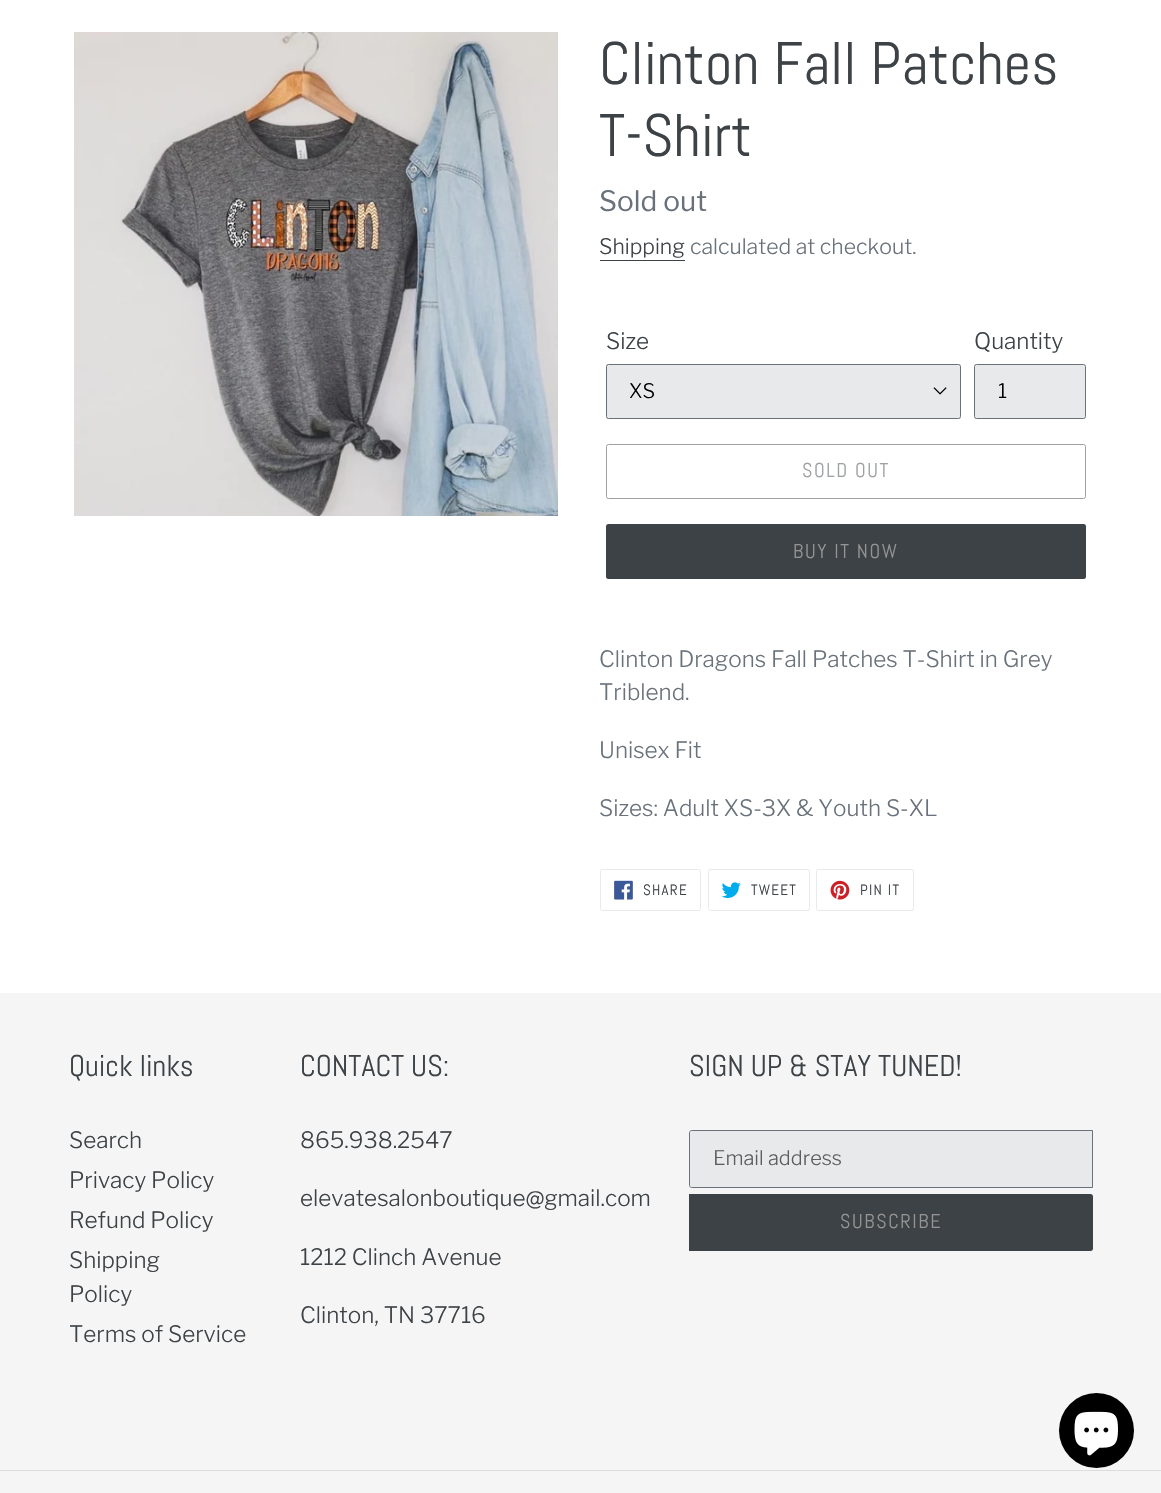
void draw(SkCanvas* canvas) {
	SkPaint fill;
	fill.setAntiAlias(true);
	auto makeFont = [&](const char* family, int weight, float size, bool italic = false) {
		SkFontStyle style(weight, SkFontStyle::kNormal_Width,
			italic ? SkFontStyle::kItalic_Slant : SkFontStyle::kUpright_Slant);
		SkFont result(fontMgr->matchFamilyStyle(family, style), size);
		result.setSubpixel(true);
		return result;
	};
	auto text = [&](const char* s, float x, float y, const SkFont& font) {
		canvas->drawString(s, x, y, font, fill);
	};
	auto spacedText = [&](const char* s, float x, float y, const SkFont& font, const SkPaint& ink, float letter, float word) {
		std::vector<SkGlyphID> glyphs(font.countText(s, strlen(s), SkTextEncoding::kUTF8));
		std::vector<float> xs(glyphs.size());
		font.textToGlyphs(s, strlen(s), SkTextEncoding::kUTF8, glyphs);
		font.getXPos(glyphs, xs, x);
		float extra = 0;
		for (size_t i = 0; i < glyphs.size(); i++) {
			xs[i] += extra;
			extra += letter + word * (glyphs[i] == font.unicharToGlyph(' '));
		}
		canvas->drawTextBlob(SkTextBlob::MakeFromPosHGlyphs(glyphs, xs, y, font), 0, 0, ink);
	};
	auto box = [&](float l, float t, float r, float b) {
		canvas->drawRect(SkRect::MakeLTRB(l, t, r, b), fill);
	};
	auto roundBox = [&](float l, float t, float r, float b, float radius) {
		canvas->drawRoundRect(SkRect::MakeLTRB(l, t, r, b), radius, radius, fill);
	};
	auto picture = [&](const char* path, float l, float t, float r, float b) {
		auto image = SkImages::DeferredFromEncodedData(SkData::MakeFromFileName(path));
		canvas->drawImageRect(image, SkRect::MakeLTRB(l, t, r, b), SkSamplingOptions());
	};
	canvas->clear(0xFFFFFFFF);
	picture("image0.png", 74, 32, 558, 516);
	fill.setColor(0xFF3D4246);
	box(600, 260, 685, 261);
	fill.setColor(0xFFE8E9EB);
	roundBox(606, 364, 961, 419, 2.5f);
	picture("image1.png", 933, 387, 947, 395);
	fill.setStyle(SkPaint::kStroke_Style);
	fill.setStrokeWidth(1);
	fill.setColor(0xFF69727B);
	canvas->drawRoundRect(SkRect::MakeLTRB(606.5f, 364.5f, 960.5f, 418.5f), 2, 2, fill);
	fill.setStyle(SkPaint::kFill_Style);
	fill.setColor(0xFFE8E9EB);
	canvas->drawRoundRect(SkRect::MakeLTRB(974.5f, 364.5f, 1085.5f, 418.5f), 2, 2, fill);
	fill.setStyle(SkPaint::kStroke_Style);
	fill.setColor(0xFF69727B);
	canvas->drawRoundRect(SkRect::MakeLTRB(974.5f, 364.5f, 1085.5f, 418.5f), 2, 2, fill);
	fill.setColor(0xFF9EA1A3);
	canvas->drawRoundRect(SkRect::MakeLTRB(606.5f, 444.5f, 1085.5f, 498.5f), 2, 2, fill);
	fill.setStyle(SkPaint::kFill_Style);
	fill.setColor(0xFF3D4246);
	roundBox(606, 524, 1086, 579, 2.5f);
	fill.setStyle(SkPaint::kStroke_Style);
	fill.setColor(0xFFE8E9EB);
	canvas->drawRoundRect(SkRect::MakeLTRB(600.5f, 869.5f, 700.5f, 910.5f), 2, 2, fill);
	picture("image2.png", 614, 880, 633, 900);
	canvas->drawRoundRect(SkRect::MakeLTRB(708.5f, 869.5f, 809.5f, 910.5f), 2, 2, fill);
	picture("image3.png", 721, 882, 741, 898);
	canvas->drawRoundRect(SkRect::MakeLTRB(816.5f, 869.5f, 913.5f, 910.5f), 2, 2, fill);
	picture("image4.png", 830, 880, 850, 900);
	fill.setStyle(SkPaint::kFill_Style);
	fill.setColor(0xFFF5F5F5);
	box(0, 993, 1161, 1493);
	fill.setColor(0xFFE8E9EB);
	canvas->drawPath(SkPathBuilder().moveTo(691.5f, 1130.5f).lineTo(1092.5f, 1130.5f).lineTo(1092.5f, 1187.5f).lineTo(691.5f, 1187.5f).cubicTo(690.5f, 1187.5f, 689.5f, 1186.5f, 689.5f, 1185.5f).lineTo(689.5f, 1132.5f).cubicTo(689.5f, 1131.5f, 690.5f, 1130.5f, 691.5f, 1130.5f).close().detach(), fill);
	fill.setStyle(SkPaint::kStroke_Style);
	fill.setColor(0xFF69727B);
	canvas->drawPath(SkPathBuilder().moveTo(691.5f, 1130.5f).lineTo(1092.5f, 1130.5f).lineTo(1092.5f, 1187.5f).lineTo(691.5f, 1187.5f).cubicTo(690.5f, 1187.5f, 689.5f, 1186.5f, 689.5f, 1185.5f).lineTo(689.5f, 1132.5f).cubicTo(689.5f, 1131.5f, 690.5f, 1130.5f, 691.5f, 1130.5f).close().detach(), fill);
	fill.setStyle(SkPaint::kFill_Style);
	fill.setColor(0xFF3D4246);
	canvas->drawPath(SkPathBuilder().moveTo(689, 1194).lineTo(1090.5f, 1194).cubicTo(1092, 1194, 1093, 1195, 1093, 1196.5f).lineTo(1093, 1248.5f).cubicTo(1093, 1250, 1092, 1251, 1090.5f, 1251).lineTo(689, 1251).close().detach(), fill);
	fill.setColor(0xFFDCDCDC);
	box(0, 1470, 1161, 1471);
	fill.setColor(0xFF000000);
	canvas->drawCircle(1096.5f, 1430.5f, 37.5f, fill);
	picture("image5.png", 1074, 1411, 1118, 1456);
	auto font1 = makeFont("Abel", 400, 60);
	fill.setColor(0xFF3D4246);
	text("Clinton Fall Patches", 599, 84, font1);
	text("T-Shirt", 599, 156, font1);
	auto font2 = makeFont("Libre Franklin", 400, 28);
	fill.setColor(0xFF69727B);
	text("Sold out", 599, 211, font2);
	auto font3 = makeFont("Libre Franklin", 300, 21.25f);
	fill.setColor(0xFF3D4246);
	text("Shipping", 599, 254, font3);
	fill.setColor(0xFF69727B);
	text("calculated at checkout.", 690, 254, font3);
	auto font4 = makeFont("Libre Franklin", 300, 22.5f);
	fill.setColor(0xFF3D4246);
	text("Size", 606, 349, font4);
	auto font5 = makeFont("Libre Franklin", 300, 20);
	fill.setColor(0xFF000000);
	text("XS", 629, 398, font5);
	fill.setColor(0xFF3D4246);
	text("Quantity", 974, 349, font4);
	fill.setColor(0xFF000000);
	text("1", 998, 398, font5);
	auto font6 = makeFont("Abel", 400, 20);
	fill.setColor(0xFF9EA1A3);
	spacedText("SOLD OUT", 802, 477, font6, fill, 1.6f, 0);
	fill.setColor(0xFF949494);
	spacedText("BUY IT NOW", 793, 558, font6, fill, 1.6f, 0);
	fill.setColor(0xFF69727B);
	text("Clinton Dragons Fall Patches T-Shirt in Grey", 599, 667, font4);
	text("Triblend.", 599, 700, font4);
	text("Unisex Fit", 599, 758, font4);
	text("Sizes: Adult XS-3X & Youth S-XL", 599, 816, font4);
	auto font7 = makeFont("Abel", 400, 15);
	fill.setColor(0xFF3D4246);
	spacedText("SHARE", 643, 895, font7, fill, 1.25f, 0);
	spacedText("TWEET", 751, 895, font7, fill, 1.25f, 0);
	spacedText("PIN IT", 860, 895, font7, fill, 1.25f, 0);
	auto font8 = makeFont("Abel", 400, 30);
	text("Quick links", 69, 1076, font8);
	text("Search", 69, 1148, font4);
	text("Privacy Policy", 69, 1188, font4);
	text("Refund Policy", 69, 1228, font4);
	text("Shipping", 69, 1268, font4);
	text("Policy", 69, 1302, font4);
	text("Terms of Service", 69, 1342, font4);
	text("CONTACT US:", 300, 1076, font8);
	text("865.938.2547", 300, 1148, font4);
	text("elevatesalonboutique@gmail.com", 300, 1206, font4);
	text("1212 Clinch Avenue", 300, 1265, font4);
	text("Clinton, TN 37716", 300, 1323, font4);
	text("SIGN UP & STAY TUNED!", 689, 1076, font8);
	fill.setColor(0xFF5D5D5E);
	text("Email address", 713, 1165, font5);
	fill.setColor(0xFF949494);
	spacedText("SUBSCRIBE", 840, 1228, font6, fill, 1.6f, 0);
}
